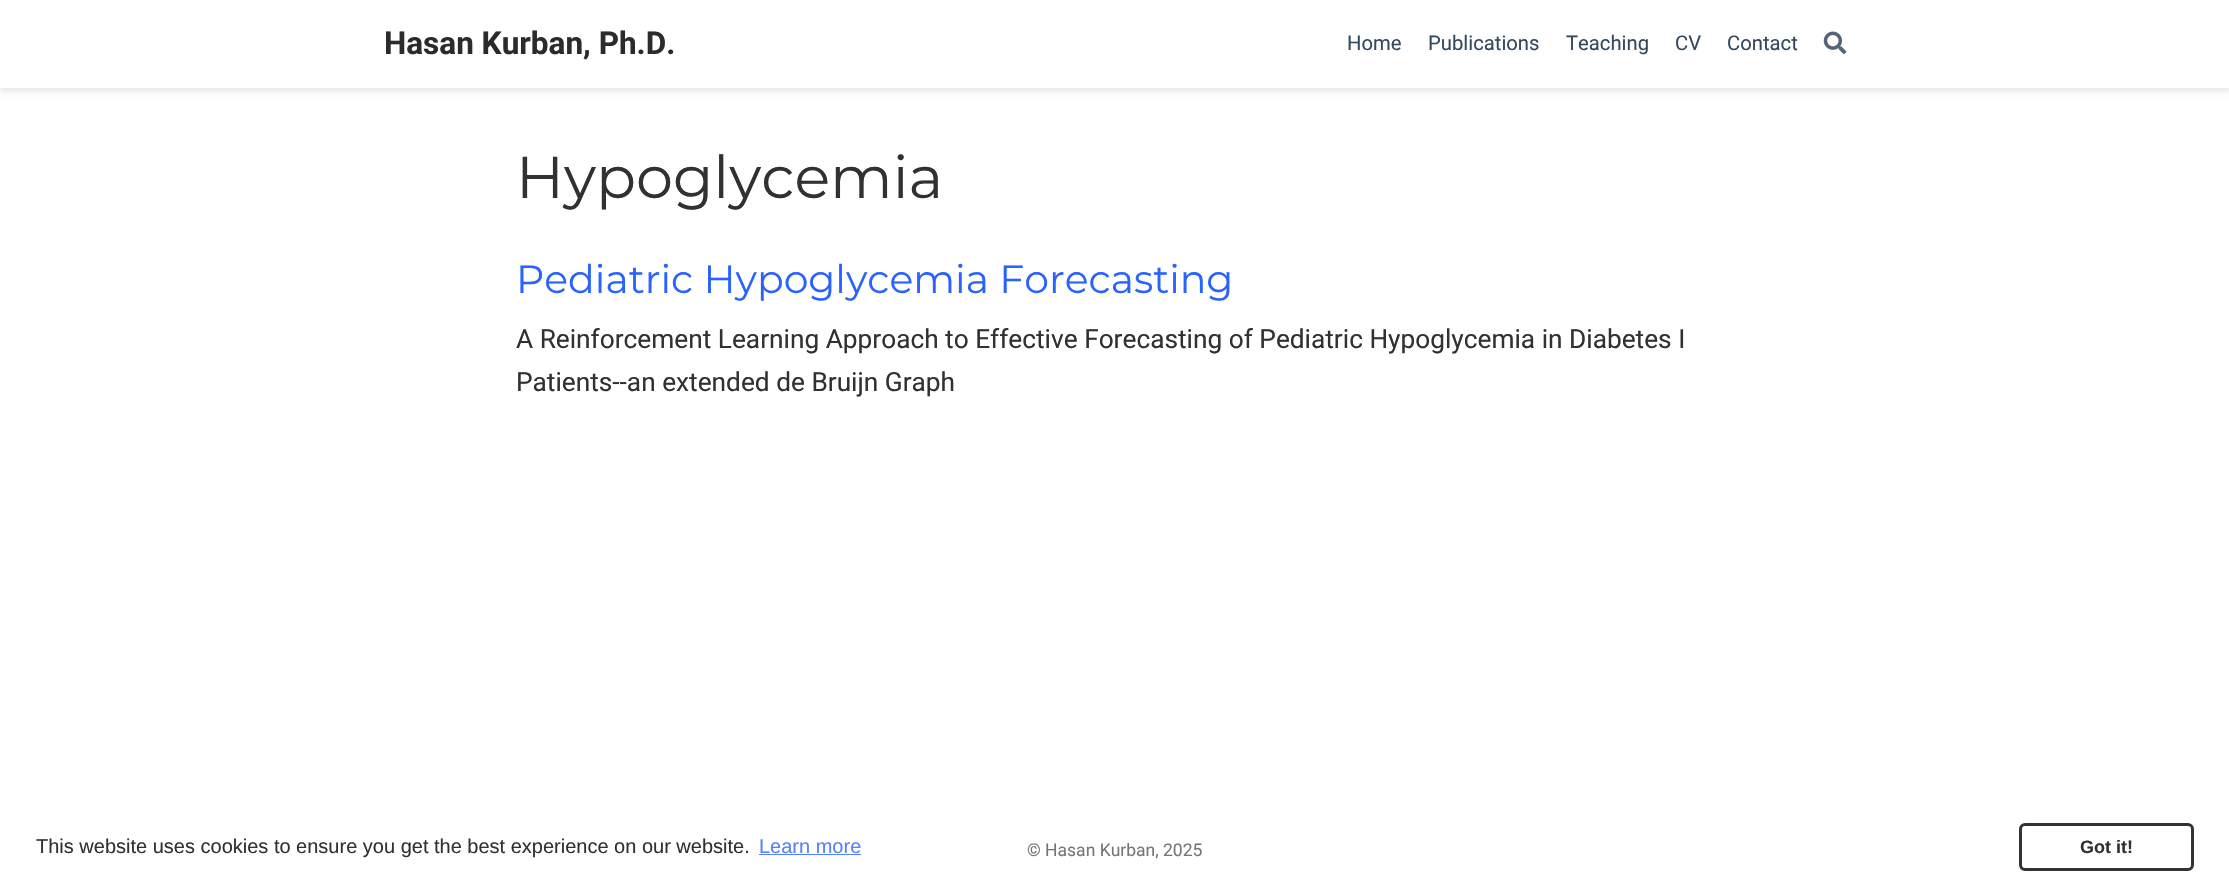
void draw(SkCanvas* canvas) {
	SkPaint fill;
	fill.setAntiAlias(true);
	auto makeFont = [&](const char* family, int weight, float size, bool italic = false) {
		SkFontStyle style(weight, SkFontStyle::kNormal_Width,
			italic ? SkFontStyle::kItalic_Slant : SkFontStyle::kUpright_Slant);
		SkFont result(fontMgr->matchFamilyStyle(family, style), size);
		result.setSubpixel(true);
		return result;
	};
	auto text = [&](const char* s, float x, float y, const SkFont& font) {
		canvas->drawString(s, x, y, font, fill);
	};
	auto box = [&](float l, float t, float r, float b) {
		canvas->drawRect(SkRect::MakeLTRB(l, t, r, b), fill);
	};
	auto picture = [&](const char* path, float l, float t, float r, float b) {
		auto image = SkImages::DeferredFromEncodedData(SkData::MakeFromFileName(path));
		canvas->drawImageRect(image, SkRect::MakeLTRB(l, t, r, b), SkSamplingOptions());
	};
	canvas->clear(0xFFFFFFFF);
	fill.setColor(0x1C000000);
	fill.setMaskFilter(SkMaskFilter::MakeBlur(kNormal_SkBlurStyle, 3.5f));
	canvas->drawRect(SkRect::MakeLTRB(0, 4, 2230, 91), fill);
	fill.setMaskFilter(nullptr);
	fill.setColor(0xFFFFFFFF);
	box(0, 0, 2229, 88);
	picture("image0.png", 1823, 31, 1847, 54);
	fill.setColor(0xFF5481FF);
	box(759, 854, 861, 855);
	fill.setStyle(SkPaint::kStroke_Style);
	fill.setStrokeWidth(3);
	fill.setColor(0xFF333333);
	canvas->drawRoundRect(SkRect::MakeLTRB(2020.5f, 824.5f, 2192.5f, 869.5f), 4.5f, 4.5f, fill);
	auto font1 = makeFont("Roboto", 700, 31.5f);
	fill.setStyle(SkPaint::kFill_Style);
	fill.setColor(0xFF2B2B2B);
	text("Hasan Kurban, Ph.D.", 384, 54, font1);
	auto font2 = makeFont("Roboto", 400, 20.25f);
	fill.setColor(0xFF34495E);
	text("Home", 1347, 50, font2);
	text("Publications", 1428, 50, font2);
	text("Teaching", 1566, 50, font2);
	text("CV", 1675, 50, font2);
	text("Contact", 1727, 50, font2);
	auto font3 = makeFont("Montserrat", 400, 59);
	fill.setColor(0xFF313131);
	text("Hypoglycemia", 516, 198, font3);
	auto font4 = makeFont("Montserrat", 400, 39.4f);
	fill.setColor(0xFF2962FF);
	text("Pediatric Hypoglycemia Forecasting", 516, 293, font4);
	auto font5 = makeFont("Roboto", 400, 26.25f);
	fill.setColor(0xFF313131);
	text("A Reinforcement Learning Approach to Effective Forecasting of Pediatric Hypoglycemia in Diabetes I", 516, 348, font5);
	text("Patients--an extended de Bruijn Graph", 516, 391, font5);
	auto font6 = makeFont("Liberation Sans", 400, 20);
	text("This website uses cookies to ensure you get the best experience on our website.", 36, 853, font6);
	fill.setColor(0xFF5481FF);
	text("Learn more", 759, 853, font6);
	auto font7 = makeFont("Liberation Sans", 700, 18);
	fill.setColor(0xFF313131);
	text("Got it!", 2080, 853, font7);
	auto font8 = makeFont("Roboto", 400, 17.5f);
	fill.setColor(0xFF757575);
	text("© Hasan Kurban, 2025", 1027, 856, font8);
}
